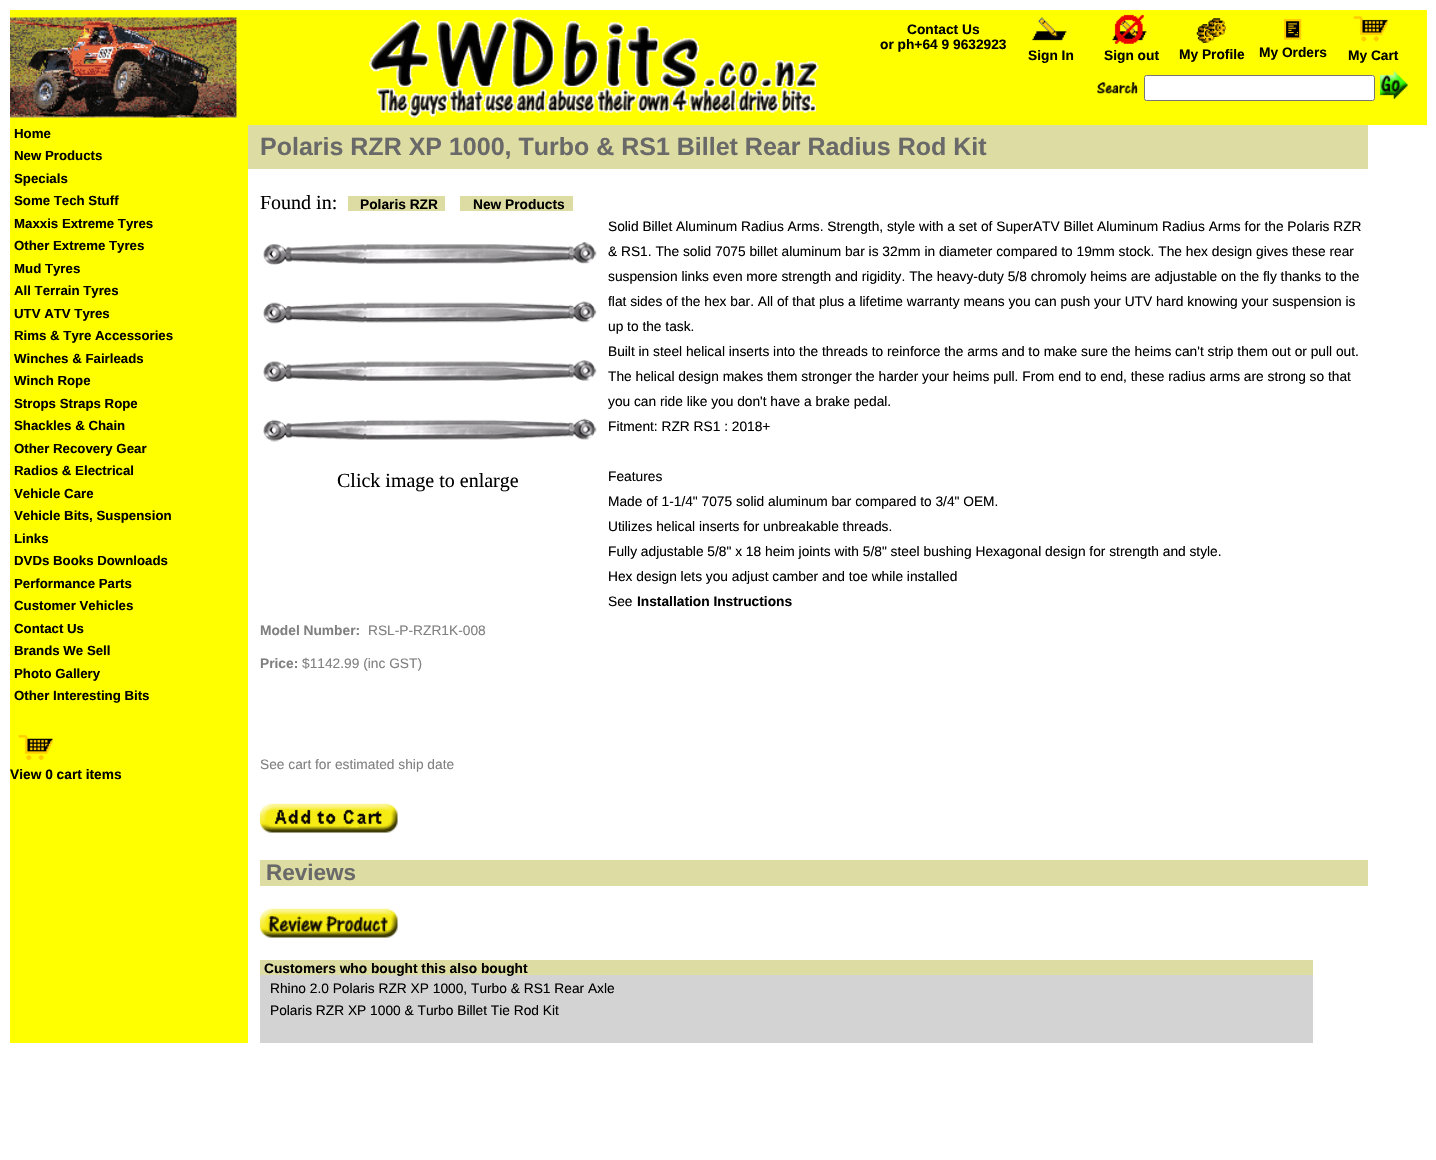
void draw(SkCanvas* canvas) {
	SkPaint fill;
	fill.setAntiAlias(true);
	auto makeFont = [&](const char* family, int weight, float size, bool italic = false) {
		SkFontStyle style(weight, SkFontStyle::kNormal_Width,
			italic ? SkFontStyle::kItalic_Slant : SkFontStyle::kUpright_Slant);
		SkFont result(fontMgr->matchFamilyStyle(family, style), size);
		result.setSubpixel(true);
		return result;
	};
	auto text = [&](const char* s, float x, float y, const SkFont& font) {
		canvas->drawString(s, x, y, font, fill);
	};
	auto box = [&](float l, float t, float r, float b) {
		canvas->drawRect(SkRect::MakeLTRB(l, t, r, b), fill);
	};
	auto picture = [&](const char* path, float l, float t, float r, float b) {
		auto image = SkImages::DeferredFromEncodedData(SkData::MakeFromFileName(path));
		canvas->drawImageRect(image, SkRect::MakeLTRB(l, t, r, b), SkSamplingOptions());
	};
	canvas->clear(0xFFFFFFFF);
	fill.setColor(0xFFFFFF00);
	box(10, 10, 1427, 125);
	picture("image0.png", 10, 17, 819, 118);
	picture("image1.png", 1032, 17, 1067, 41);
	picture("image2.png", 1112, 14, 1147, 44);
	picture("image3.png", 1196, 18, 1226, 43);
	picture("image4.png", 1284, 19, 1302, 40);
	picture("image5.png", 1353, 16, 1388, 42);
	picture("image6.png", 1097, 82, 1138, 95);
	fill.setColor(0xFFFFFFFF);
	canvas->drawRoundRect(SkRect::MakeLTRB(1144.5f, 75.5f, 1374.5f, 100.5f), 2, 2, fill);
	fill.setStyle(SkPaint::kStroke_Style);
	fill.setStrokeWidth(1);
	fill.setColor(0xFF767676);
	canvas->drawRoundRect(SkRect::MakeLTRB(1144.5f, 75.5f, 1374.5f, 100.5f), 2, 2, fill);
	picture("image7.png", 1380, 71, 1408, 99);
	fill.setStyle(SkPaint::kFill_Style);
	fill.setColor(0xFFFFFF00);
	box(10, 125, 248, 1043);
	picture("image8.png", 18, 735, 53, 761);
	fill.setColor(0xFFDDDCA3);
	box(248, 125, 1368, 169);
	box(348, 196, 445, 211);
	box(460, 196, 573, 211);
	picture("image9.png", 263, 241, 597, 442);
	picture("image10.png", 260, 803, 398, 833);
	box(260, 860, 1368, 886);
	picture("image11.png", 260, 908, 398, 938);
	box(260, 960, 1313, 975);
	fill.setColor(0xFFD3D3D3);
	box(260, 975, 1313, 1043);
	auto font1 = makeFont("Liberation Sans", 700, 13.75f);
	fill.setColor(0xFF000000);
	text("Contact Us", 907, 34, font1);
	text("or ph+64 9 9632923", 880, 49, font1);
	text("Sign In", 1028, 60, font1);
	text("Sign out", 1104, 60, font1);
	text("My Profile", 1179, 59, font1);
	text("My Orders", 1259, 57, font1);
	text("My Cart", 1348, 60, font1);
	auto font2 = makeFont("Liberation Sans", 700, 13.25f);
	text("Home", 14, 138, font2);
	text("New Products", 14, 160, font2);
	text("Specials", 14, 183, font2);
	text("Some Tech Stuff", 14, 205, font2);
	text("Maxxis Extreme Tyres", 14, 228, font2);
	text("Other Extreme Tyres", 14, 250, font2);
	text("Mud Tyres", 14, 273, font2);
	text("All Terrain Tyres", 14, 295, font2);
	text("UTV ATV Tyres", 14, 318, font2);
	text("Rims & Tyre Accessories", 14, 340, font2);
	text("Winches & Fairleads", 14, 363, font2);
	text("Winch Rope", 14, 385, font2);
	text("Strops Straps Rope", 14, 408, font2);
	text("Shackles & Chain", 14, 430, font2);
	text("Other Recovery Gear", 14, 453, font2);
	text("Radios & Electrical", 14, 475, font2);
	text("Vehicle Care", 14, 498, font2);
	text("Vehicle Bits, Suspension", 14, 520, font2);
	text("Links", 14, 543, font2);
	text("DVDs Books Downloads", 14, 565, font2);
	text("Performance Parts", 14, 588, font2);
	text("Customer Vehicles", 14, 610, font2);
	text("Contact Us", 14, 633, font2);
	text("Brands We Sell", 14, 655, font2);
	text("Photo Gallery", 14, 678, font2);
	text("Other Interesting Bits", 14, 700, font2);
	text("View 0 cart items", 10, 779, font1);
	auto font3 = makeFont("Liberation Sans", 700, 25);
	fill.setColor(0xFF696969);
	text("Polaris RZR XP 1000, Turbo & RS1 Billet Rear Radius Rod Kit", 260, 155, font3);
	auto font4 = makeFont("Liberation Serif", 400, 20);
	fill.setColor(0xFF000000);
	text("Found in:", 260, 209, font4);
	text("Polaris RZR", 360, 209, font1);
	text("New Products", 473, 209, font1);
	text("Click image to enlarge", 337, 487, font4);
	auto font5 = makeFont("Liberation Sans", 400, 13.75f);
	text("Solid Billet Aluminum Radius Arms. Strength, style with a set of SuperATV Billet Aluminum Radius Arms for the Polaris RZR", 608, 231, font5);
	text("& RS1. The solid 7075 billet aluminum bar is 32mm in diameter compared to 19mm stock. The hex design gives these rear", 608, 256, font5);
	text("suspension links even more strength and rigidity. The heavy-duty 5/8 chromoly heims are adjustable on the fly thanks to the", 608, 281, font5);
	text("flat sides of the hex bar. All of that plus a lifetime warranty means you can push your UTV hard knowing your suspension is", 608, 306, font5);
	text("up to the task.", 608, 331, font5);
	text("Built in steel helical inserts into the threads to reinforce the arms and to make sure the heims can't strip them out or pull out.", 608, 356, font5);
	text("The helical design makes them stronger the harder your heims pull. From end to end, these radius arms are strong so that", 608, 381, font5);
	text("you can ride like you don't have a brake pedal.", 608, 406, font5);
	text("Fitment: RZR RS1 : 2018+", 608, 431, font5);
	text("Features", 608, 481, font5);
	text("Made of 1-1/4\" 7075 solid aluminum bar compared to 3/4\" OEM.", 608, 506, font5);
	text("Utilizes helical inserts for unbreakable threads.", 608, 531, font5);
	text("Fully adjustable 5/8\" x 18 heim joints with 5/8\" steel bushing Hexagonal design for strength and style.", 608, 556, font5);
	text("Hex design lets you adjust camber and toe while installed", 608, 581, font5);
	text("See", 608, 606, font5);
	text("Installation Instructions", 637, 606, font1);
	fill.setColor(0xFF808080);
	text("Model Number:", 260, 635, font1);
	text("RSL-P-RZR1K-008", 368, 635, font5);
	text("Price:", 260, 668, font1);
	text("$1142.99 (inc GST)", 302, 668, font5);
	text("See cart for estimated ship date", 260, 769, font5);
	auto font6 = makeFont("Liberation Sans", 700, 22.5f);
	fill.setColor(0xFF696969);
	text("Reviews", 266, 880, font6);
	fill.setColor(0xFF000000);
	text("Customers who bought this also bought", 264, 973, font1);
	text("Rhino 2.0 Polaris RZR XP 1000, Turbo & RS1 Rear Axle", 270, 993, font5);
	text("Polaris RZR XP 1000 & Turbo Billet Tie Rod Kit", 270, 1015, font5);
}
